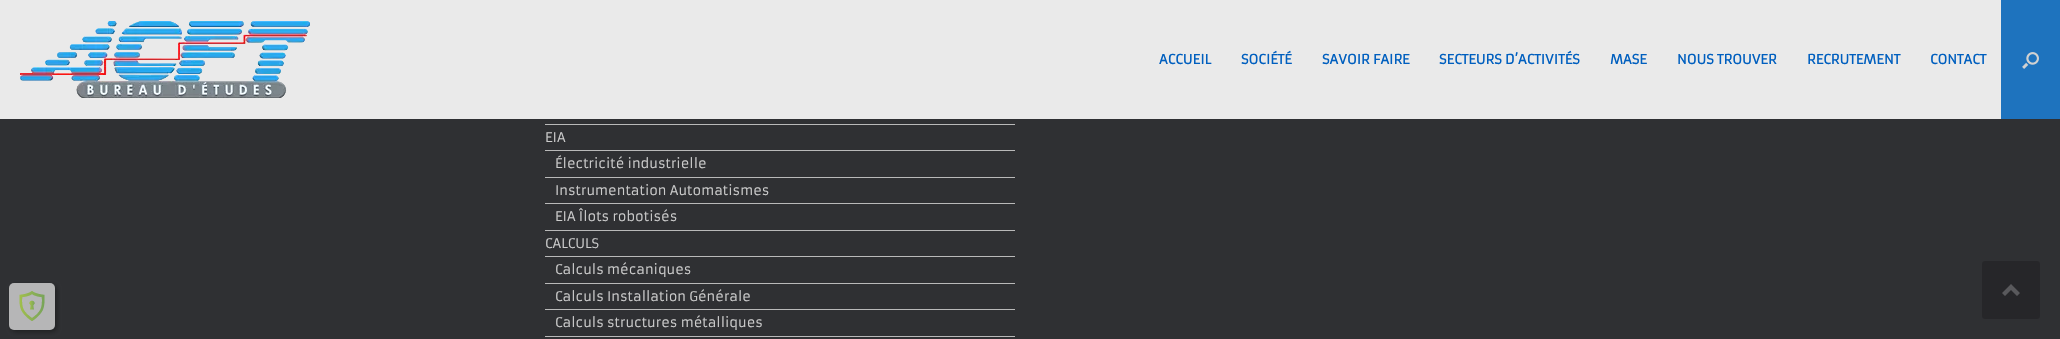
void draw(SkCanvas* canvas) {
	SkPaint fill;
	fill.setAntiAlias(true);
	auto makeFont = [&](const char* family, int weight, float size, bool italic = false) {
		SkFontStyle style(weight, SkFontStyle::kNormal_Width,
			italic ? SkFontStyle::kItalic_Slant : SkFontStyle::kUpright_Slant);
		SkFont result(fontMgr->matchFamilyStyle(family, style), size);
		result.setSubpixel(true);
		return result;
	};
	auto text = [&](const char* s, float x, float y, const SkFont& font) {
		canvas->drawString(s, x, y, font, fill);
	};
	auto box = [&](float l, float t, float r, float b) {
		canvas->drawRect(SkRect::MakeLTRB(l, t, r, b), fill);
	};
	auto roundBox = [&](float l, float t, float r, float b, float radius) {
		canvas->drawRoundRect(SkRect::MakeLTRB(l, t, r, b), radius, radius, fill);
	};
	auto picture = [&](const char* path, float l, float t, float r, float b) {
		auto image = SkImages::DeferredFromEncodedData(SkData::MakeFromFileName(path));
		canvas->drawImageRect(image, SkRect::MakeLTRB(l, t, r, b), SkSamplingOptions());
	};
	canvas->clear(0xFF2F3033);
	canvas->save();
	canvas->clipPath(SkPathBuilder(SkPathFillType::kEvenOdd).moveTo(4, 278).lineTo(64, 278).lineTo(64, 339).lineTo(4, 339).close().moveTo(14, 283).lineTo(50, 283).cubicTo(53, 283, 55, 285, 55, 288).lineTo(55, 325).cubicTo(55, 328, 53, 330, 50, 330).lineTo(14, 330).cubicTo(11, 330, 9, 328, 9, 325).lineTo(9, 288).cubicTo(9, 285, 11, 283, 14, 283).close().detach(), true);
	fill.setColor(0x780E0E0F);
	fill.setMaskFilter(SkMaskFilter::MakeBlur(kNormal_SkBlurStyle, 2));
	canvas->drawRoundRect(SkRect::MakeLTRB(11, 285, 57, 332), 5, 5, fill);
	fill.setMaskFilter(nullptr);
	canvas->restore();
	fill.setColor(0xFCB7B7B8);
	roundBox(9, 283, 55, 330, 5);
	picture("image0.png", 19, 291, 45, 321);
	fill.setColor(0xFFEAEAEA);
	box(0, 0, 2001, 119);
	picture("image1.png", 20, 21, 310, 98);
	fill.setColor(0xFF1E73BE);
	box(2001, 0, 2060, 119);
	picture("image2.png", 2022, 52, 2039, 69);
	fill.setColor(0xFFB9B9B9);
	box(545, 124, 1015, 125);
	box(545, 150, 1015, 151);
	box(545, 177, 1015, 178);
	box(545, 203, 1015, 204);
	box(545, 230, 1015, 231);
	box(545, 256, 1015, 257);
	box(545, 283, 1015, 284);
	box(545, 309, 1015, 310);
	box(545, 336, 1015, 337);
	fill.setColor(0xFF262629);
	roundBox(1982, 261, 2040, 319, 3);
	fill.setColor(0xFF59595C);
	canvas->drawPath(SkPathBuilder().moveTo(2020, 293).lineTo(2011, 284).lineTo(2002, 293).lineTo(2005, 296).lineTo(2011, 290).lineTo(2017, 296).close().detach(), fill);
	auto font1 = makeFont("Armata", 700, 13);
	fill.setColor(0xFF005FBF);
	text("ACCUEIL", 1159, 64, font1);
	text("SOCIÉTÉ", 1241, 64, font1);
	text("SAVOIR FAIRE", 1322, 64, font1);
	text("SECTEURS D’ACTIVITÉS", 1439, 64, font1);
	text("MASE", 1610, 64, font1);
	text("NOUS TROUVER", 1677, 64, font1);
	text("RECRUTEMENT", 1807, 64, font1);
	text("CONTACT", 1930, 64, font1);
	auto font2 = makeFont("Armata", 400, 13);
	fill.setColor(0xFFCCCCCC);
	text("EIA", 545, 142, font2);
	text("Électricité industrielle", 555, 168, font2);
	text("Instrumentation Automatismes", 555, 195, font2);
	text("EIA Îlots robotisés", 555, 221, font2);
	text("CALCULS", 545, 248, font2);
	text("Calculs mécaniques", 555, 274, font2);
	text("Calculs Installation Générale", 555, 301, font2);
	text("Calculs structures métalliques", 555, 327, font2);
}
